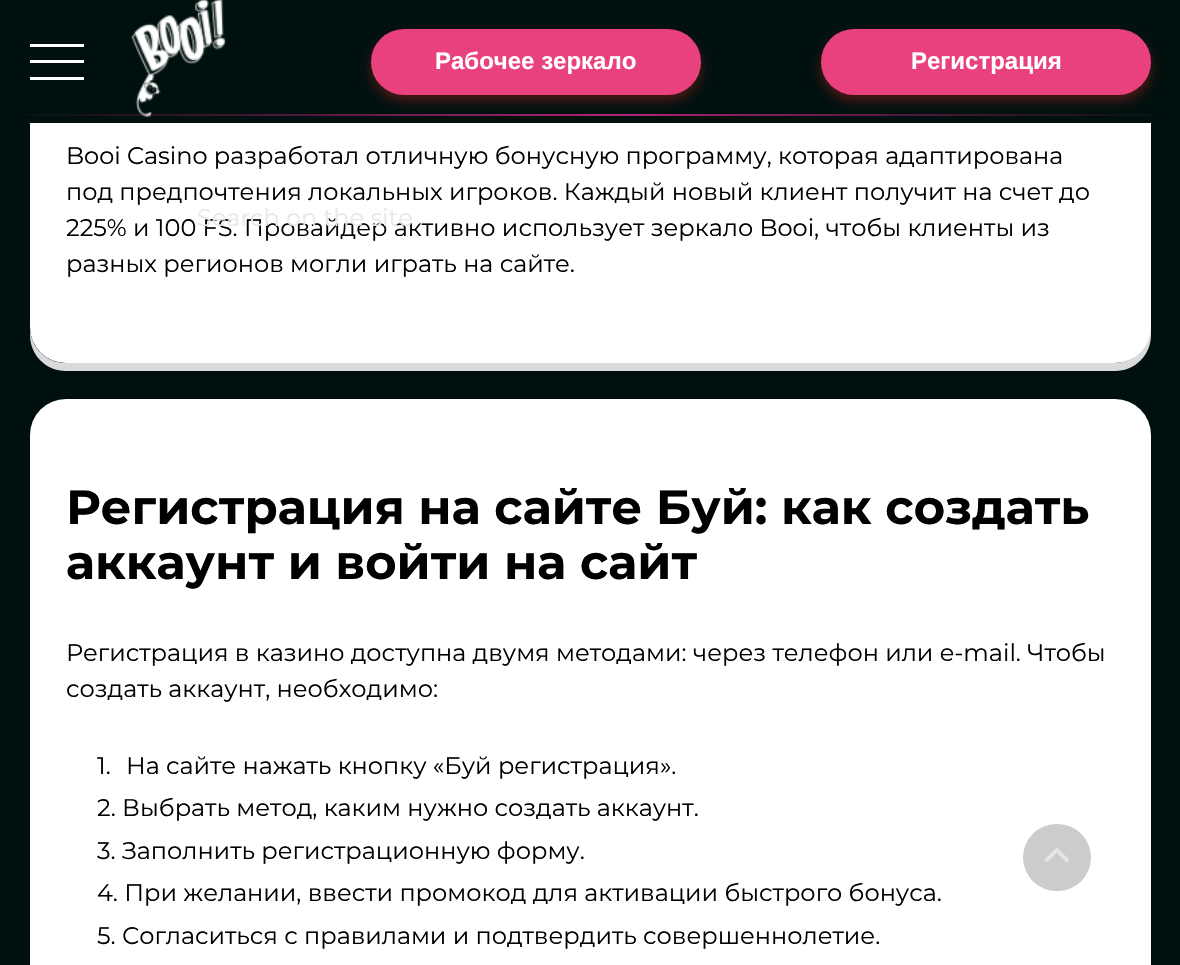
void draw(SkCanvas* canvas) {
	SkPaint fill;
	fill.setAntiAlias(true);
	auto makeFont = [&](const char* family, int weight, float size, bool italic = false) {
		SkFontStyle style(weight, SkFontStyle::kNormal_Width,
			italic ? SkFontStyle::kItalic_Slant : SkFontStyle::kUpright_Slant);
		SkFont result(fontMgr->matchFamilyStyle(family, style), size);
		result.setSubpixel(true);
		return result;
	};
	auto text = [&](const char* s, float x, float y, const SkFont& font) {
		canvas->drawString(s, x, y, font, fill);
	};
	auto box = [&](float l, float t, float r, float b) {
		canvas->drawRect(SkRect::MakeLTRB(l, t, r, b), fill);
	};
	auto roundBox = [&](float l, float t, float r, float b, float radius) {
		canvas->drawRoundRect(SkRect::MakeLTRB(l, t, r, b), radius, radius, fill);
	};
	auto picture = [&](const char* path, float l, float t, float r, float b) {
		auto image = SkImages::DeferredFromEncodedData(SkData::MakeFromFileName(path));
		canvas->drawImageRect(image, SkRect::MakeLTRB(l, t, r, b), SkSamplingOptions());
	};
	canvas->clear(0xFF00100E);
	fill.setColor(0xFFDADADD);
	canvas->drawPath(SkPathBuilder().moveTo(30, 327).lineTo(30, 335).cubicTo(30, 355, 46, 371, 66, 371).lineTo(1115, 371).cubicTo(1135, 371, 1151, 355, 1151, 335).lineTo(1151, -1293).lineTo(1150, -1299).lineTo(1150, 327).cubicTo(1150, 347, 1134, 363, 1114, 363).lineTo(66, 363).cubicTo(46, 363, 30, 347, 30, 327).close().detach(), fill);
	fill.setColor(0xFFFFFFFF);
	roundBox(30, -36, 1151, 363, 36);
	fill.setColor(0xFF00100E);
	box(30, 0, 1151, 123);
	fill.setColor(0xFFFFFFFF);
	box(30, 44, 84, 47);
	box(30, 60, 84, 63);
	box(30, 77, 84, 80);
	picture("image0.png", 131, 0, 227, 117);
	fill.setColor(0x4DFE2C2C);
	fill.setMaskFilter(SkMaskFilter::MakeBlur(kNormal_SkBlurStyle, 6));
	canvas->drawRoundRect(SkRect::MakeLTRB(371, 35, 701, 101), 33, 33, fill);
	fill.setMaskFilter(nullptr);
	fill.setColor(0xFFE9417D);
	roundBox(371, 29, 701, 95, 33);
	fill.setColor(0x4DFE2C2C);
	fill.setMaskFilter(SkMaskFilter::MakeBlur(kNormal_SkBlurStyle, 6));
	canvas->drawRoundRect(SkRect::MakeLTRB(821, 35, 1151, 101), 33, 33, fill);
	fill.setMaskFilter(nullptr);
	fill.setColor(0xFFE9417D);
	roundBox(821, 29, 1151, 95, 33);
	{
		const SkColor colors[] = {0x00FE2CA1, 0x59FE2CA1, 0xB3FE2CA1, 0x59FE2CA1, 0x00FE2CA1};
		const float stops[] = {0, 0.28f, 0.53f, 0.74f, 1};
		const SkPoint ends[] = {{0, 115}, {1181, 115}};
		fill.setShader(SkGradientShader::MakeLinear(ends, colors, stops, 5, SkTileMode::kClamp));
		fill.setAlpha(255);
	}
	box(20, 114, 1162, 116);
	fill.setShader(nullptr);
	fill.setColor(0xFFFFFFFF);
	roundBox(30, 399, 1151, 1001, 36);
	fill.setColor(0xFFCCCCCC);
	roundBox(1023, 824, 1091, 891, 33.5f);
	picture("image1.png", 1044, 848, 1069, 862);
	auto font1 = makeFont("Liberation Sans", 700, 24);
	fill.setColor(0xFFFFFFFF);
	text("Рабочее зеркало", 435, 69, font1);
	text("Регистрация", 911, 69, font1);
	auto font2 = makeFont("Montserrat", 400, 24);
	fill.setColor(0xFF000000);
	text("Booi Casino разработал отличную бонусную программу, которая адаптирована", 66, 164, font2);
	text("под предпочтения локальных игроков. Каждый новый клиент получит на счет до", 66, 200, font2);
	text("225% и 100 FS. Провайдер активно использует зеркало Booi, чтобы клиенты из", 66, 236, font2);
	text("разных регионов могли играть на сайте.", 66, 272, font2);
	auto font3 = makeFont("Montserrat", 700, 48);
	text("Регистрация на сайте Буй: как создать", 66, 524, font3);
	text("аккаунт и войти на сайт", 66, 579, font3);
	text("Регистрация в казино доступна двумя методами: через телефон или e-mail. Чтобы", 66, 661, font2);
	text("создать аккаунт, необходимо:", 66, 697, font2);
	text("1.", 97, 774, font2);
	text("На сайте нажать кнопку «Буй регистрация».", 126, 774, font2);
	text("2. Выбрать метод, каким нужно создать аккаунт.", 97, 816, font2);
	text("3. Заполнить регистрационную форму.", 97, 859, font2);
	text("4. При желании, ввести промокод для активации быстрого бонуса.", 97, 901, font2);
	text("5. Согласиться с правилами и подтвердить совершеннолетие.", 97, 944, font2);
	fill.setColor(0xFFE8E8E8);
	text("Search on the site", 197, 226, font2);
}
